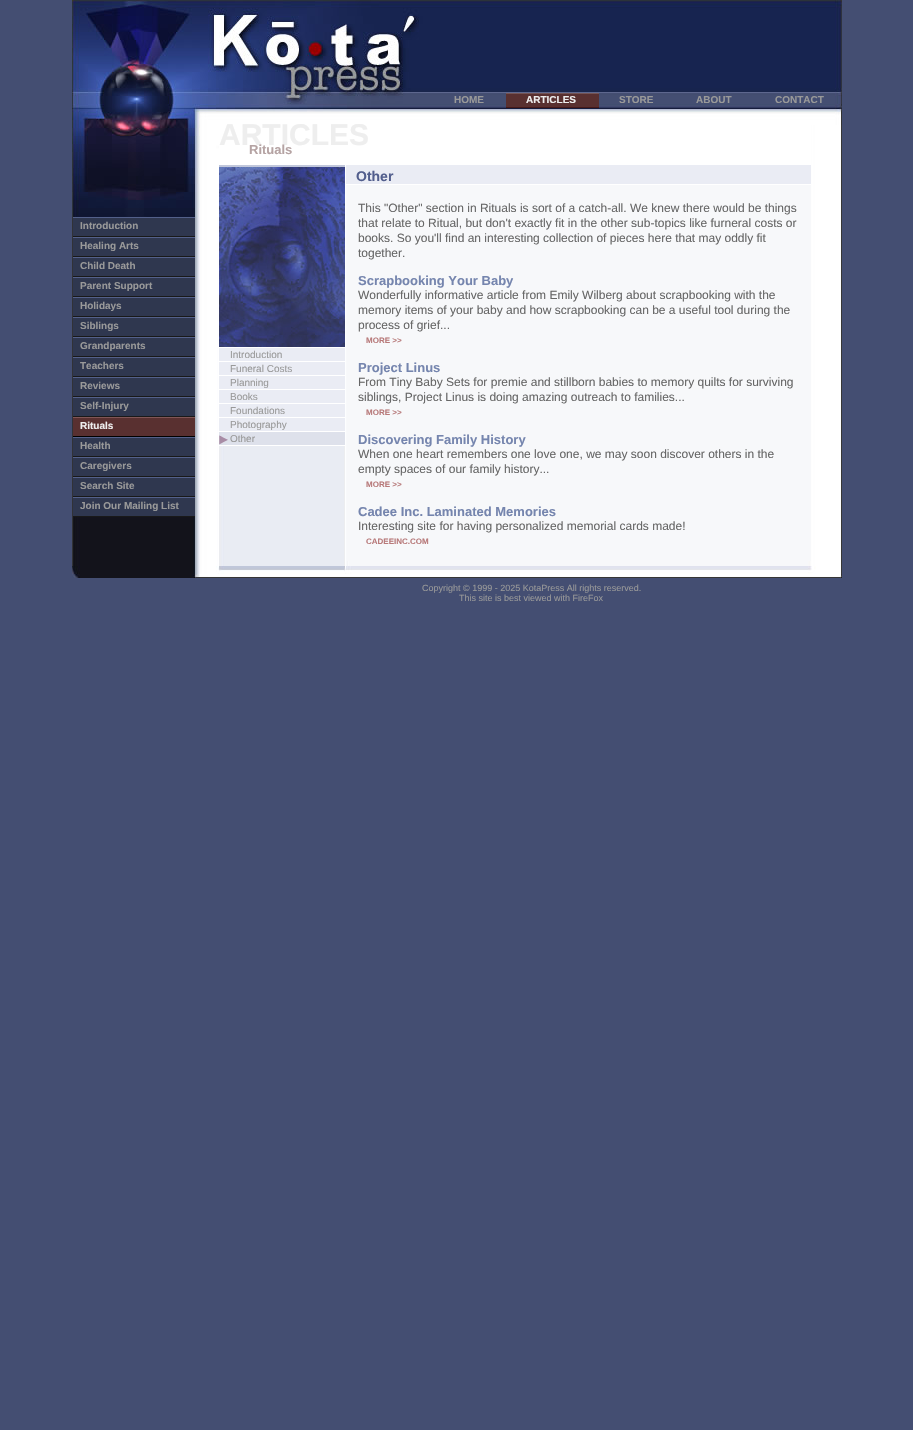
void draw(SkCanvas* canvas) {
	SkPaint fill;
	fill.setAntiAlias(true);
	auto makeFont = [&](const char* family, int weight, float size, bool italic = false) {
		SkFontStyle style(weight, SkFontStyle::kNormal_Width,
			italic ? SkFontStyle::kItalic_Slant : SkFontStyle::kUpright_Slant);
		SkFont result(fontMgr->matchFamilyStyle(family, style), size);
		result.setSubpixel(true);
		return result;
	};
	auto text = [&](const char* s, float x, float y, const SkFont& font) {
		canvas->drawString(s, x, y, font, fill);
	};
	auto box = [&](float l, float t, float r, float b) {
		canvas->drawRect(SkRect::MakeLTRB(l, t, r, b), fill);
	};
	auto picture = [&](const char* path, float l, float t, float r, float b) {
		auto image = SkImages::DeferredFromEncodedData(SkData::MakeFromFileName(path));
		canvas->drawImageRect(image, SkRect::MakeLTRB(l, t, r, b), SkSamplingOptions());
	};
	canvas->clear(0xFF444E72);
	picture("image0.png", 72, 125, 842, 566);
	picture("image1.png", 219, 0, 842, 125);
	fill.setColor(0xFF593030);
	box(506, 94, 599, 107);
	fill.setColor(0xFF745454);
	box(506, 93, 599, 94);
	fill.setColor(0xFF461818);
	box(506, 107, 599, 108);
	picture("image2.png", 72, 0, 219, 217);
	fill.setColor(0xFF2F374F);
	box(73, 218, 195, 236);
	fill.setColor(0xFF53608A);
	box(73, 217, 195, 218);
	fill.setColor(0xFF191919);
	box(73, 236, 195, 237);
	fill.setColor(0xFF2F374F);
	box(73, 238, 195, 256);
	fill.setColor(0xFF53608A);
	box(73, 237, 195, 238);
	fill.setColor(0xFF191919);
	box(73, 256, 195, 257);
	fill.setColor(0xFF2F374F);
	box(73, 258, 195, 276);
	fill.setColor(0xFF53608A);
	box(73, 257, 195, 258);
	fill.setColor(0xFF191919);
	box(73, 276, 195, 277);
	fill.setColor(0xFF2F374F);
	box(73, 278, 195, 296);
	fill.setColor(0xFF53608A);
	box(73, 277, 195, 278);
	fill.setColor(0xFF191919);
	box(73, 296, 195, 297);
	fill.setColor(0xFF2F374F);
	box(73, 298, 195, 316);
	fill.setColor(0xFF53608A);
	box(73, 297, 195, 298);
	fill.setColor(0xFF191919);
	box(73, 316, 195, 317);
	fill.setColor(0xFF2F374F);
	box(73, 318, 195, 336);
	fill.setColor(0xFF53608A);
	box(73, 317, 195, 318);
	fill.setColor(0xFF191919);
	box(73, 336, 195, 337);
	fill.setColor(0xFF2F374F);
	box(73, 338, 195, 356);
	fill.setColor(0xFF53608A);
	box(73, 337, 195, 338);
	fill.setColor(0xFF191919);
	box(73, 356, 195, 357);
	fill.setColor(0xFF2F374F);
	box(73, 358, 195, 376);
	fill.setColor(0xFF53608A);
	box(73, 357, 195, 358);
	fill.setColor(0xFF191919);
	box(73, 376, 195, 377);
	fill.setColor(0xFF2F374F);
	box(73, 378, 195, 396);
	fill.setColor(0xFF53608A);
	box(73, 377, 195, 378);
	fill.setColor(0xFF191919);
	box(73, 396, 195, 397);
	fill.setColor(0xFF2F374F);
	box(73, 398, 195, 416);
	fill.setColor(0xFF53608A);
	box(73, 397, 195, 398);
	fill.setColor(0xFF191919);
	box(73, 416, 195, 417);
	fill.setColor(0xFF593030);
	box(73, 418, 195, 436);
	fill.setColor(0xFF815656);
	box(73, 417, 195, 418);
	fill.setColor(0xFF000000);
	box(73, 436, 195, 437);
	fill.setColor(0xFF2F374F);
	box(73, 438, 195, 456);
	fill.setColor(0xFF53608A);
	box(73, 437, 195, 438);
	fill.setColor(0xFF191919);
	box(73, 456, 195, 457);
	fill.setColor(0xFF2F374F);
	box(73, 458, 195, 476);
	fill.setColor(0xFF53608A);
	box(73, 457, 195, 458);
	fill.setColor(0xFF191919);
	box(73, 476, 195, 477);
	fill.setColor(0xFF2F374F);
	box(73, 478, 195, 496);
	fill.setColor(0xFF53608A);
	box(73, 477, 195, 478);
	fill.setColor(0xFF191919);
	box(73, 496, 195, 497);
	fill.setColor(0xFF2F374F);
	box(73, 498, 195, 516);
	fill.setColor(0xFF53608A);
	box(73, 497, 195, 498);
	fill.setColor(0xFF191919);
	box(73, 516, 195, 517);
	fill.setColor(0xFFFFFFFF);
	box(219, 125, 811, 165);
	fill.setColor(0xFFC1C7DB);
	box(219, 165, 345, 167);
	picture("image3.png", 219, 167, 345, 347);
	fill.setColor(0xFFFFFFFF);
	box(219, 347, 345, 348);
	fill.setColor(0xFFEAECF4);
	box(219, 348, 345, 361);
	fill.setColor(0xFFFFFFFF);
	box(219, 361, 345, 362);
	fill.setColor(0xFFEAECF4);
	box(219, 362, 345, 375);
	fill.setColor(0xFFFFFFFF);
	box(219, 375, 345, 376);
	fill.setColor(0xFFEAECF4);
	box(219, 376, 345, 389);
	fill.setColor(0xFFFFFFFF);
	box(219, 389, 345, 390);
	fill.setColor(0xFFEAECF4);
	box(219, 390, 345, 403);
	fill.setColor(0xFFFFFFFF);
	box(219, 403, 345, 404);
	fill.setColor(0xFFEAECF4);
	box(219, 404, 345, 417);
	fill.setColor(0xFFFFFFFF);
	box(219, 417, 345, 418);
	fill.setColor(0xFFEAECF4);
	box(219, 418, 345, 431);
	fill.setColor(0xFFFFFFFF);
	box(219, 431, 345, 432);
	picture("image4.png", 219, 432, 345, 445);
	box(219, 445, 345, 446);
	fill.setColor(0xFFF7F8FA);
	box(347, 185, 811, 561);
	fill.setColor(0xFFEAECF4);
	box(346, 165, 811, 184);
	fill.setColor(0xFFFFFFFF);
	box(346, 184, 811, 185);
	picture("image5.png", 72, 566, 842, 578);
	auto font1 = makeFont("Liberation Sans", 700, 10);
	fill.setColor(0xFF999999);
	text("HOME", 454, 103, font1);
	fill.setColor(0xFFEEEEEE);
	text("ARTICLES", 526, 103, font1);
	fill.setColor(0xFF999999);
	text("STORE", 619, 103, font1);
	text("ABOUT", 696, 103, font1);
	text("CONTACT", 775, 103, font1);
	text("Introduction", 80, 229, font1);
	text("Healing Arts", 80, 249, font1);
	text("Child Death", 80, 269, font1);
	text("Parent Support", 80, 289, font1);
	text("Holidays", 80, 309, font1);
	text("Siblings", 80, 329, font1);
	text("Grandparents", 80, 349, font1);
	text("Teachers", 80, 369, font1);
	text("Reviews", 80, 389, font1);
	text("Self-Injury", 80, 409, font1);
	fill.setColor(0xFFEEEEEE);
	text("Rituals", 80, 429, font1);
	fill.setColor(0xFF999999);
	text("Health", 80, 449, font1);
	text("Caregivers", 80, 469, font1);
	text("Search Site", 80, 489, font1);
	text("Join Our Mailing List", 80, 509, font1);
	auto font2 = makeFont("Liberation Sans", 700, 30);
	fill.setColor(0xFFEEEEEE);
	text("ARTICLES", 219, 145, font2);
	auto font3 = makeFont("Liberation Sans", 700, 13);
	fill.setColor(0xFFB5A3A3);
	text("Rituals", 249, 154, font3);
	auto font4 = makeFont("Liberation Sans", 400, 10);
	fill.setColor(0xFF999999);
	text("Introduction", 230, 358, font4);
	text("Funeral Costs", 230, 372, font4);
	text("Planning", 230, 386, font4);
	text("Books", 230, 400, font4);
	text("Foundations", 230, 414, font4);
	text("Photography", 230, 428, font4);
	text("Other", 230, 442, font4);
	auto font5 = makeFont("Liberation Sans", 700, 14);
	fill.setColor(0xFF525E8D);
	text("Other", 356, 181, font5);
	auto font6 = makeFont("Liberation Sans", 400, 12);
	fill.setColor(0xFF666666);
	text("This \"Other\" section in Rituals is sort of a catch-all. We knew there would be things", 358, 212, font6);
	text("that relate to Ritual, but don't exactly fit in the other sub-topics like furneral costs or", 358, 227, font6);
	text("books. So you'll find an interesting collection of pieces here that may oddly fit", 358, 242, font6);
	text("together.", 358, 257, font6);
	fill.setColor(0xFF7585AE);
	text("Scrapbooking Your Baby", 358, 285, font3);
	fill.setColor(0xFF666666);
	text("Wonderfully informative article from Emily Wilberg about scrapbooking with the", 358, 299, font6);
	text("memory items of your baby and how scrapbooking can be a useful tool during the", 358, 314, font6);
	text("process of grief...", 358, 329, font6);
	auto font7 = makeFont("Liberation Sans", 700, 8);
	fill.setColor(0xFFB87A7A);
	text("MORE >>", 366, 343, font7);
	fill.setColor(0xFF7585AE);
	text("Project Linus", 358, 372, font3);
	fill.setColor(0xFF666666);
	text("From Tiny Baby Sets for premie and stillborn babies to memory quilts for surviving", 358, 386, font6);
	text("siblings, Project Linus is doing amazing outreach to families...", 358, 401, font6);
	fill.setColor(0xFFB87A7A);
	text("MORE >>", 366, 415, font7);
	fill.setColor(0xFF7585AE);
	text("Discovering Family History", 358, 444, font3);
	fill.setColor(0xFF666666);
	text("When one heart remembers one love one, we may soon discover others in the", 358, 458, font6);
	text("empty spaces of our family history...", 358, 473, font6);
	fill.setColor(0xFFB87A7A);
	text("MORE >>", 366, 487, font7);
	fill.setColor(0xFF7585AE);
	text("Cadee Inc. Laminated Memories", 358, 516, font3);
	fill.setColor(0xFF666666);
	text("Interesting site for having personalized memorial cards made!", 358, 530, font6);
	fill.setColor(0xFFB87A7A);
	text("CADEEINC.COM", 366, 544, font7);
	auto font8 = makeFont("Liberation Sans", 400, 9);
	fill.setColor(0xFF999999);
	text("Copyright © 1999 - 2025 KotaPress All rights reserved.", 422, 591, font8);
	text("This site is best viewed with FireFox", 459, 601, font8);
}
